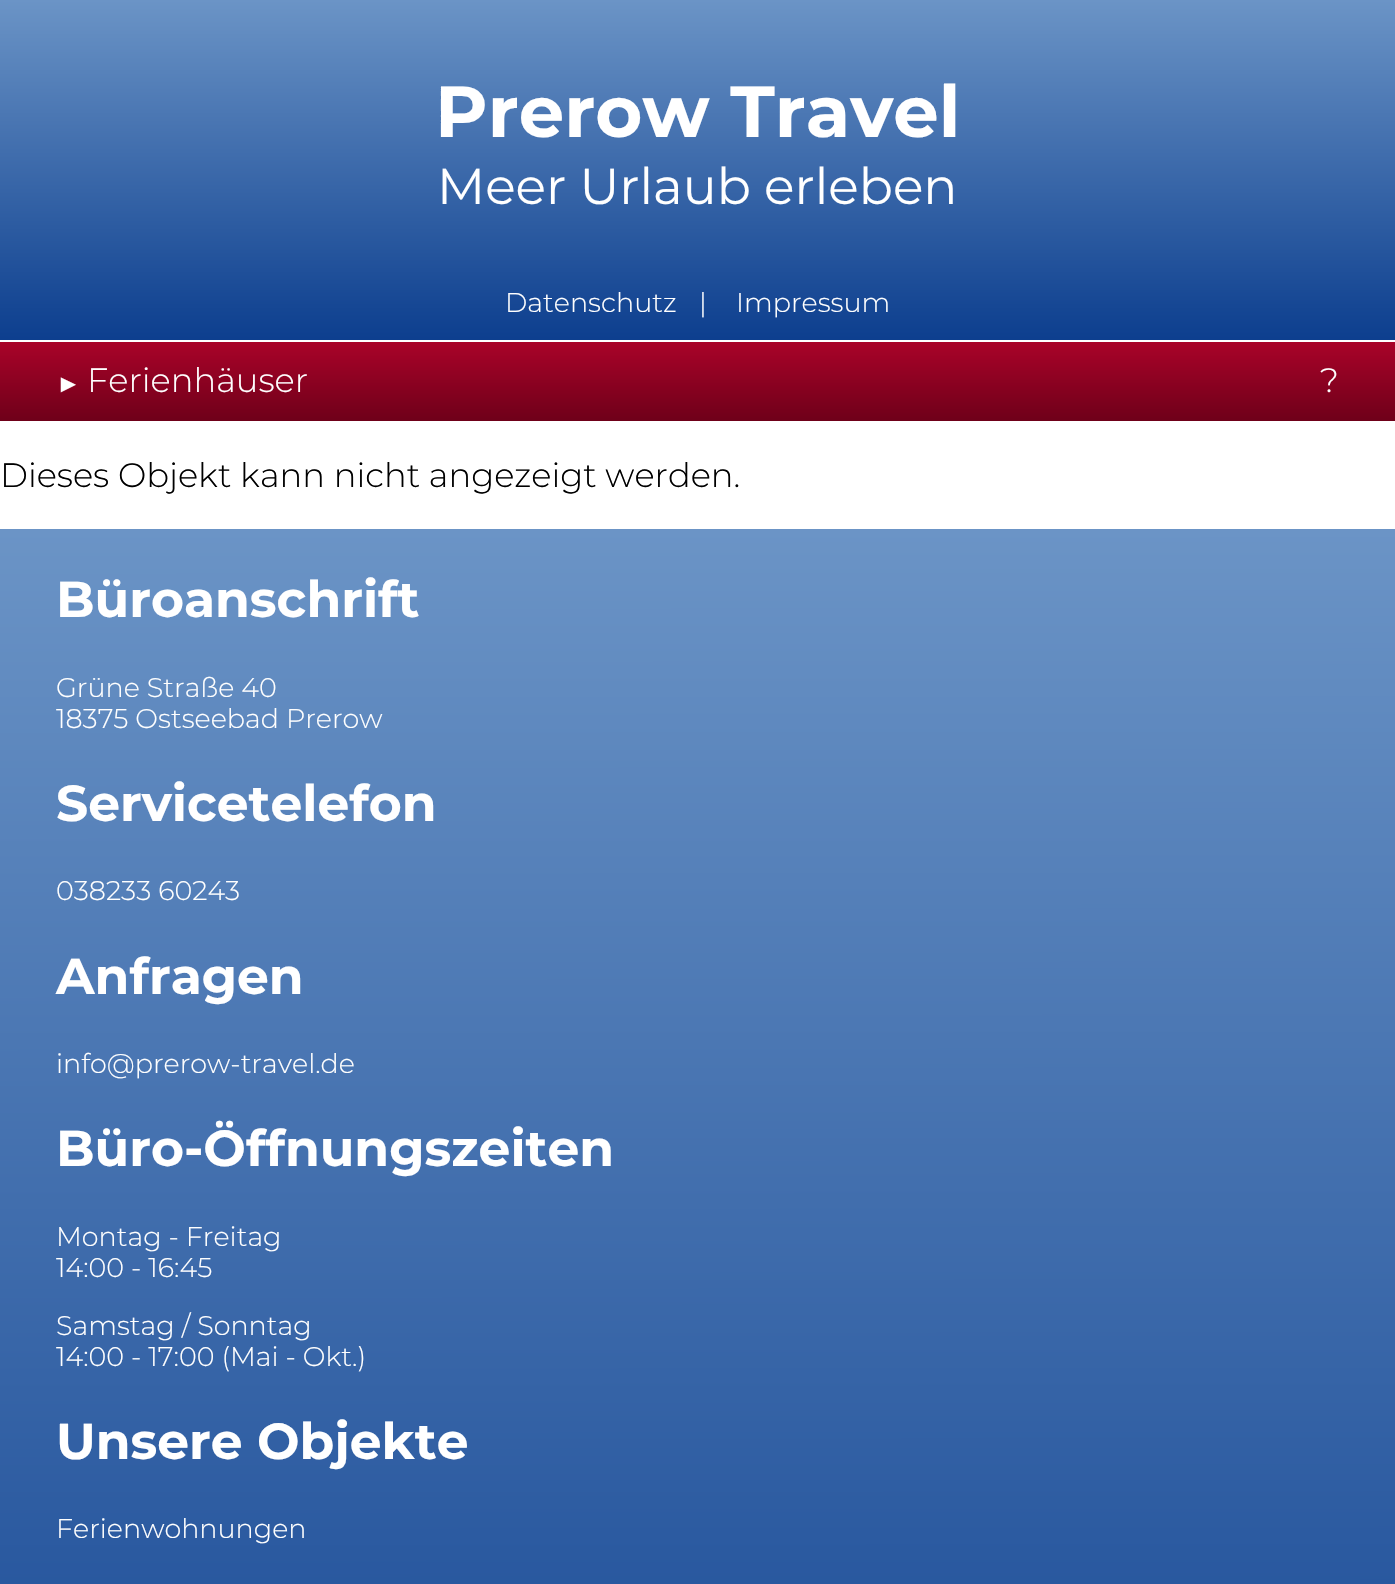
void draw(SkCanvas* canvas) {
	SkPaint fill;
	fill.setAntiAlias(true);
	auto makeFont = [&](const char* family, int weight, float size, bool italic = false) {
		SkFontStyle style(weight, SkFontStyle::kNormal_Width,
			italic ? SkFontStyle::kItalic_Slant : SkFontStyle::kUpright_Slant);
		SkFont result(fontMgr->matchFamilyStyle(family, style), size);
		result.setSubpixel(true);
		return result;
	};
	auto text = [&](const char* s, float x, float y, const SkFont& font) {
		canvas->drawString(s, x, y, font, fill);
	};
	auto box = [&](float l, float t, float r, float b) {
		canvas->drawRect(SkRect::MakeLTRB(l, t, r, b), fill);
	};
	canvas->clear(0xFFFFFFFF);
	{
		const SkColor colors[] = {0xFF6B94C6, 0xFF0C3E8E};
		const float stops[] = {0, 1};
		const SkPoint ends[] = {{698, 0}, {698, 342}};
		fill.setShader(SkGradientShader::MakeLinear(ends, colors, stops, 2, SkTileMode::kClamp));
		fill.setAlpha(255);
	}
	box(0, 0, 1395, 340);
	{
		const SkColor colors[] = {0xFFA90329, 0xFF6D0019};
		const float stops[] = {0, 1};
		const SkPoint ends[] = {{698, 342}, {698, 423}};
		fill.setShader(SkGradientShader::MakeLinear(ends, colors, stops, 2, SkTileMode::kClamp));
		fill.setAlpha(255);
	}
	box(0, 342, 1395, 421);
	{
		const SkColor colors[] = {0xFF6B94C6, 0xFF0C3E8E};
		const float stops[] = {0, 1};
		const SkPoint ends[] = {{697, 529}, {698, 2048}};
		fill.setShader(SkGradientShader::MakeLinear(ends, colors, stops, 2, SkTileMode::kClamp));
		fill.setAlpha(255);
	}
	box(0, 529, 1395, 1584);
	auto font1 = makeFont("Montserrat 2", 100, 72);
	fill.setShader(nullptr);
	fill.setColor(0xFFFFFFFF);
	text("Prerow Travel", 435, 137, font1);
	auto font2 = makeFont("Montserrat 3", 100, 50.4f);
	text("Meer Urlaub erleben", 437, 204, font2);
	auto font3 = makeFont("Montserrat", 100, 27);
	text("Datenschutz", 505, 312, font3);
	text("|", 699, 312, font3);
	text("Impressum", 736, 312, font3);
	auto font4 = makeFont("Liberation Sans", 400, 25);
	text("►", 56, 392, font4);
	auto font5 = makeFont("Montserrat", 100, 33.75f);
	text("Ferienhäuser", 87, 392, font5);
	text("?", 1320, 392, font5);
	fill.setColor(0xFF000000);
	text("Dieses Objekt kann nicht angezeigt werden.", 0, 487, font5);
	auto font6 = makeFont("Montserrat 2", 100, 50.4f);
	fill.setColor(0xFFFFFFFF);
	text("Büroanschrift", 56, 617, font6);
	text("Grüne Straße 40", 56, 697, font3);
	text("18375 Ostseebad Prerow", 56, 728, font3);
	text("Servicetelefon", 56, 821, font6);
	text("038233 60243", 56, 900, font3);
	text("Anfragen", 56, 994, font6);
	text("info@prerow-travel.de", 56, 1073, font3);
	text("Büro-Öffnungszeiten", 56, 1166, font6);
	text("Montag - Freitag", 56, 1246, font3);
	text("14:00 - 16:45", 56, 1277, font3);
	text("Samstag / Sonntag", 56, 1335, font3);
	text("14:00 - 17:00 (Mai - Okt.)", 56, 1366, font3);
	text("Unsere Objekte", 56, 1459, font6);
	text("Ferienwohnungen", 56, 1538, font3);
}
